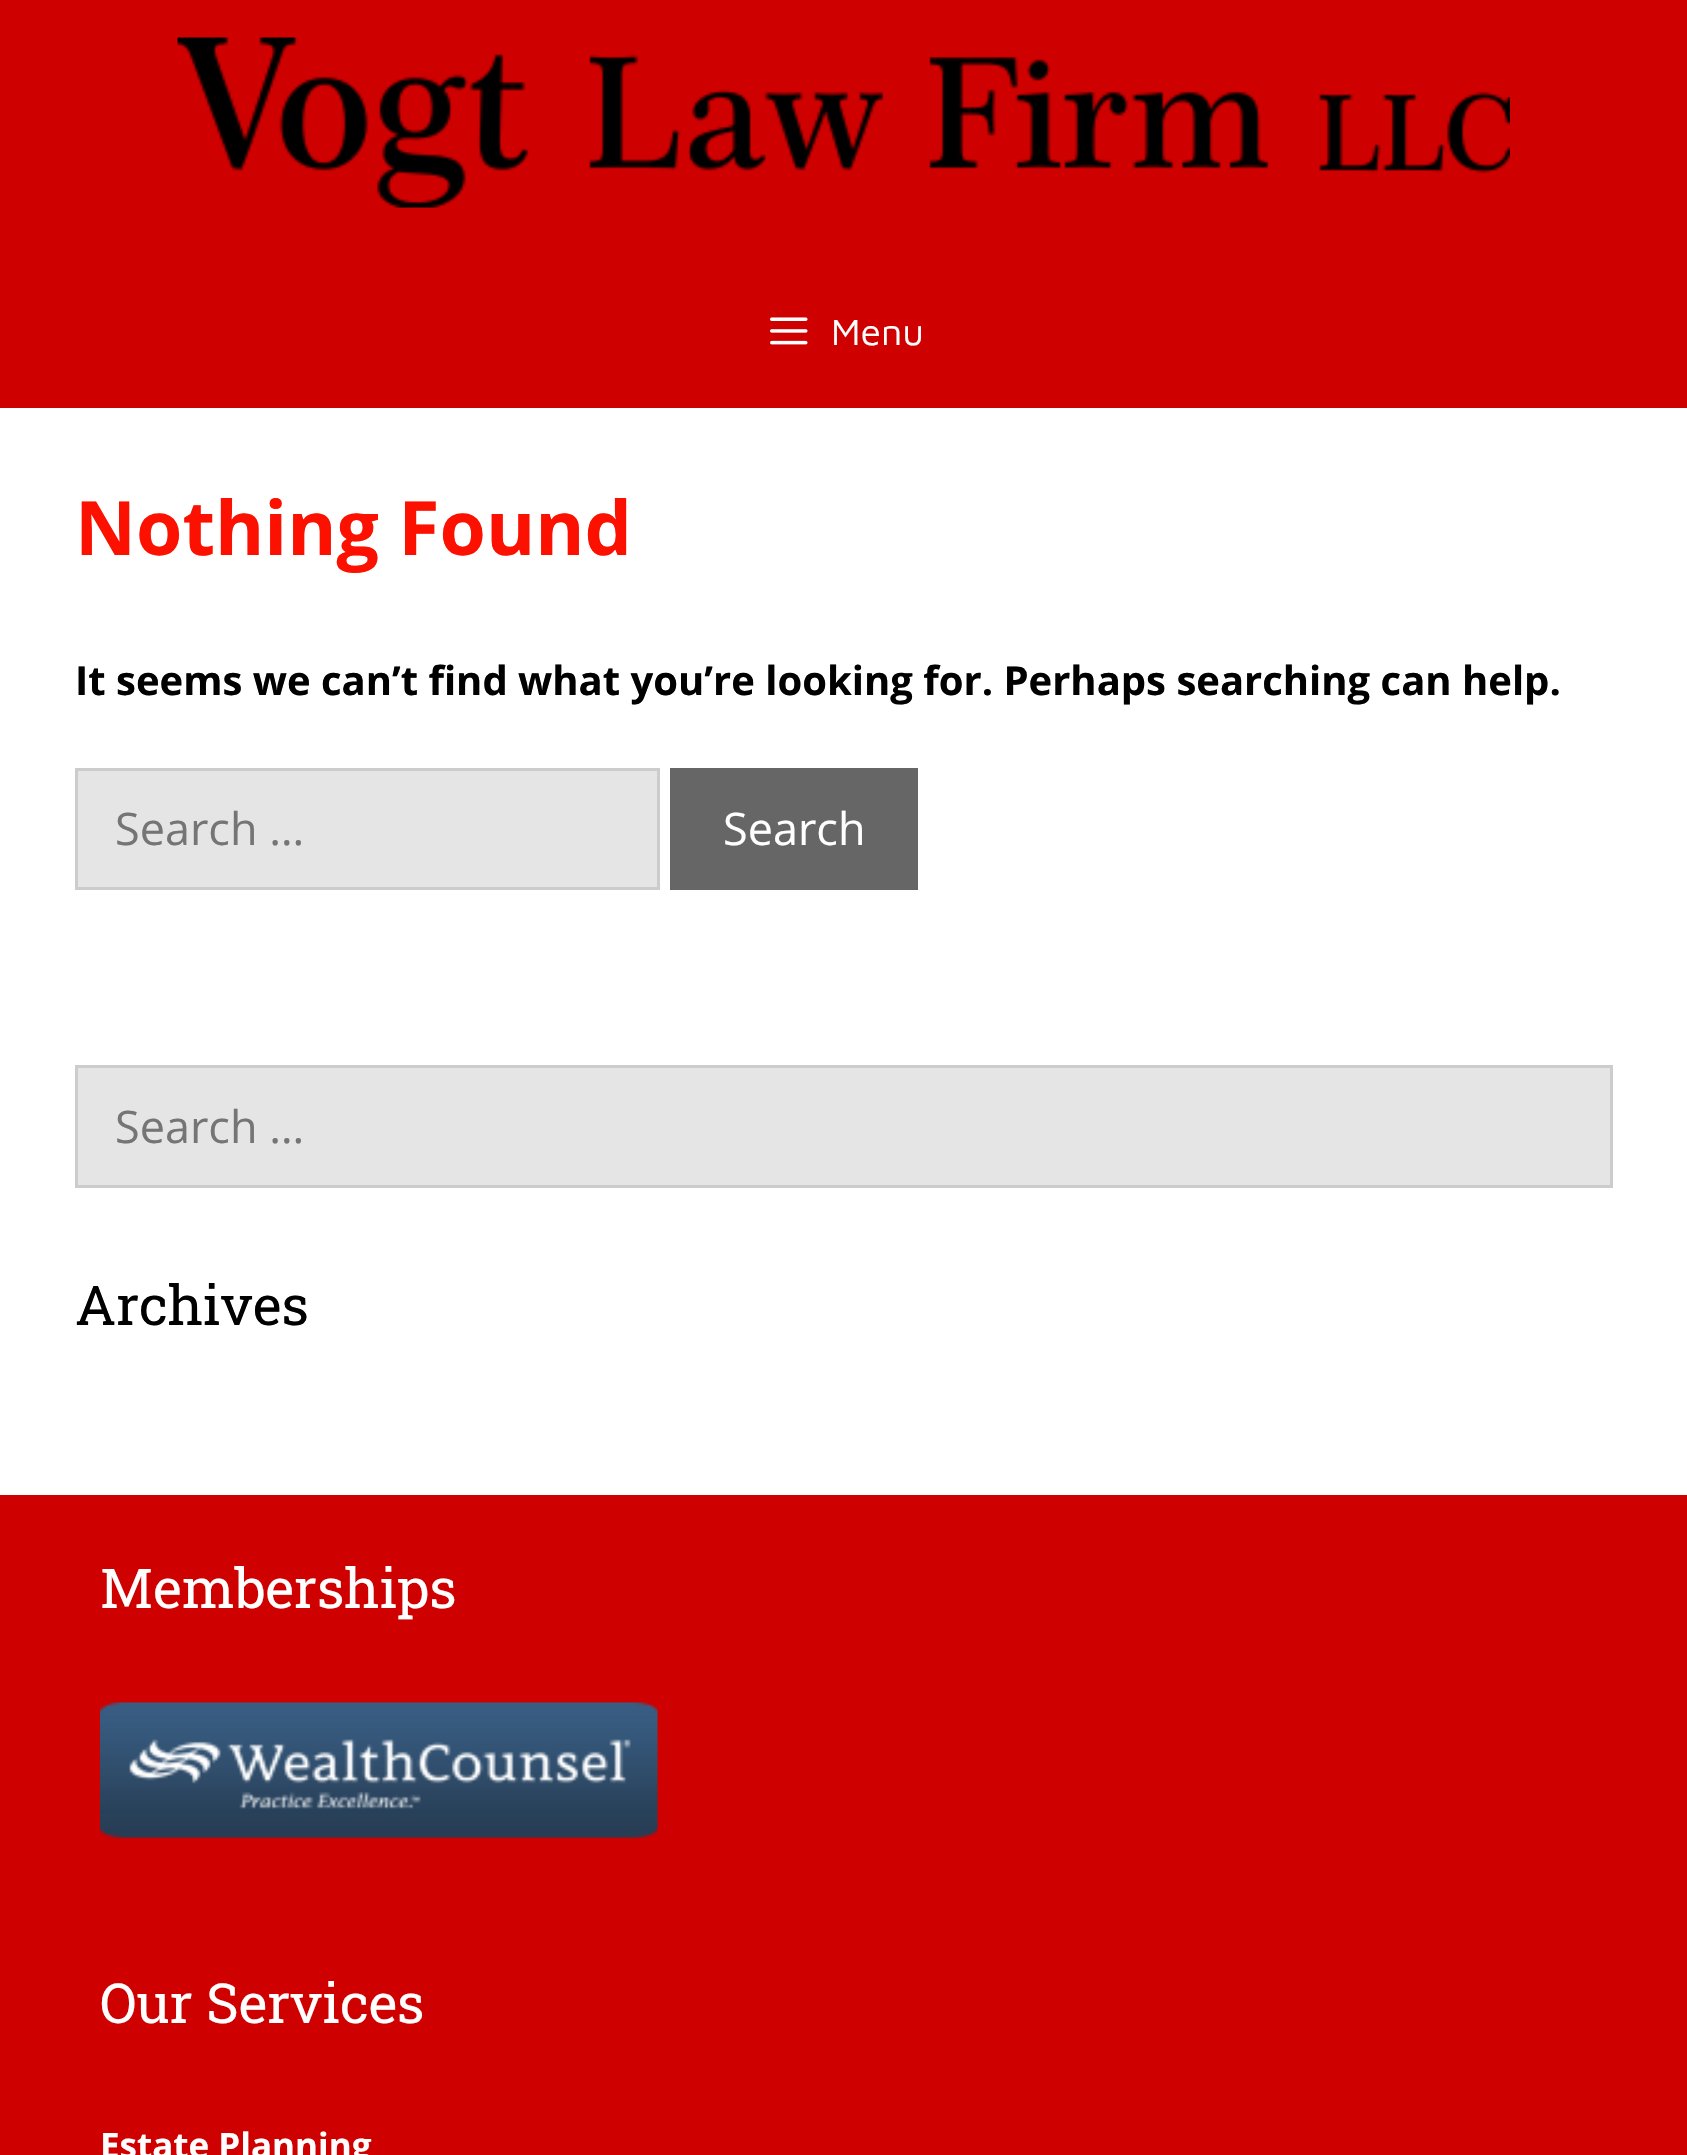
void draw(SkCanvas* canvas) {
	SkPaint fill;
	fill.setAntiAlias(true);
	auto makeFont = [&](const char* family, int weight, float size, bool italic = false) {
		SkFontStyle style(weight, SkFontStyle::kNormal_Width,
			italic ? SkFontStyle::kItalic_Slant : SkFontStyle::kUpright_Slant);
		SkFont result(fontMgr->matchFamilyStyle(family, style), size);
		result.setSubpixel(true);
		return result;
	};
	auto text = [&](const char* s, float x, float y, const SkFont& font) {
		canvas->drawString(s, x, y, font, fill);
	};
	auto box = [&](float l, float t, float r, float b) {
		canvas->drawRect(SkRect::MakeLTRB(l, t, r, b), fill);
	};
	auto picture = [&](const char* path, float l, float t, float r, float b) {
		auto image = SkImages::DeferredFromEncodedData(SkData::MakeFromFileName(path));
		canvas->drawImageRect(image, SkRect::MakeLTRB(l, t, r, b), SkSamplingOptions());
	};
	canvas->clear(0xFFFFFFFF);
	fill.setColor(0xFFCF0000);
	box(0, 0, 1687, 408);
	picture("image0.png", 177, 37, 1510, 208);
	picture("image1.png", 770, 317, 808, 345);
	fill.setColor(0xFFE5E5E5);
	canvas->drawRect(SkRect::MakeLTRB(76.5f, 769.5f, 658.5f, 888.5f), fill);
	fill.setStyle(SkPaint::kStroke_Style);
	fill.setStrokeWidth(3);
	fill.setColor(0xFFCCCCCC);
	canvas->drawRect(SkRect::MakeLTRB(76.5f, 769.5f, 658.5f, 888.5f), fill);
	fill.setStyle(SkPaint::kFill_Style);
	fill.setColor(0xFF666666);
	box(670, 768, 918, 890);
	fill.setColor(0xFFE5E5E5);
	canvas->drawRect(SkRect::MakeLTRB(76.5f, 1066.5f, 1611.5f, 1186.5f), fill);
	fill.setStyle(SkPaint::kStroke_Style);
	fill.setColor(0xFFCCCCCC);
	canvas->drawRect(SkRect::MakeLTRB(76.5f, 1066.5f, 1611.5f, 1186.5f), fill);
	fill.setStyle(SkPaint::kFill_Style);
	fill.setColor(0xFFCF0000);
	box(0, 1495, 1687, 2155);
	picture("image2.png", 100, 1702, 658, 1839);
	auto font1 = makeFont("Maven Pro", 400, 37.5f);
	fill.setColor(0xFFFFFFFF);
	text("Menu", 831, 345, font1);
	auto font2 = makeFont("Open Sans", 700, 75);
	fill.setColor(0xFFFC1000);
	text("Nothing Found", 75, 555, font2);
	auto font3 = makeFont("Open Sans", 700, 40);
	fill.setColor(0xFF000000);
	text("It seems we can’t find what you’re looking for. Perhaps searching can help.", 75, 695, font3);
	auto font4 = makeFont("Open Sans", 400, 45);
	fill.setColor(0xFF757575);
	text("Search …", 115, 845, font4);
	fill.setColor(0xFFFFFFFF);
	text("Search", 723, 845, font4);
	fill.setColor(0xFF757575);
	text("Search …", 115, 1143, font4);
	auto font5 = makeFont("Roboto Slab", 400, 55);
	fill.setColor(0xFF000000);
	text("Archives", 75, 1325, font5);
	fill.setColor(0xFFFFFFFF);
	text("Memberships", 100, 1608, font5);
	text("Our Services", 100, 2023, font5);
	auto font6 = makeFont("Open Sans", 700, 35);
	text("Estate Planning", 100, 2158, font6);
}
